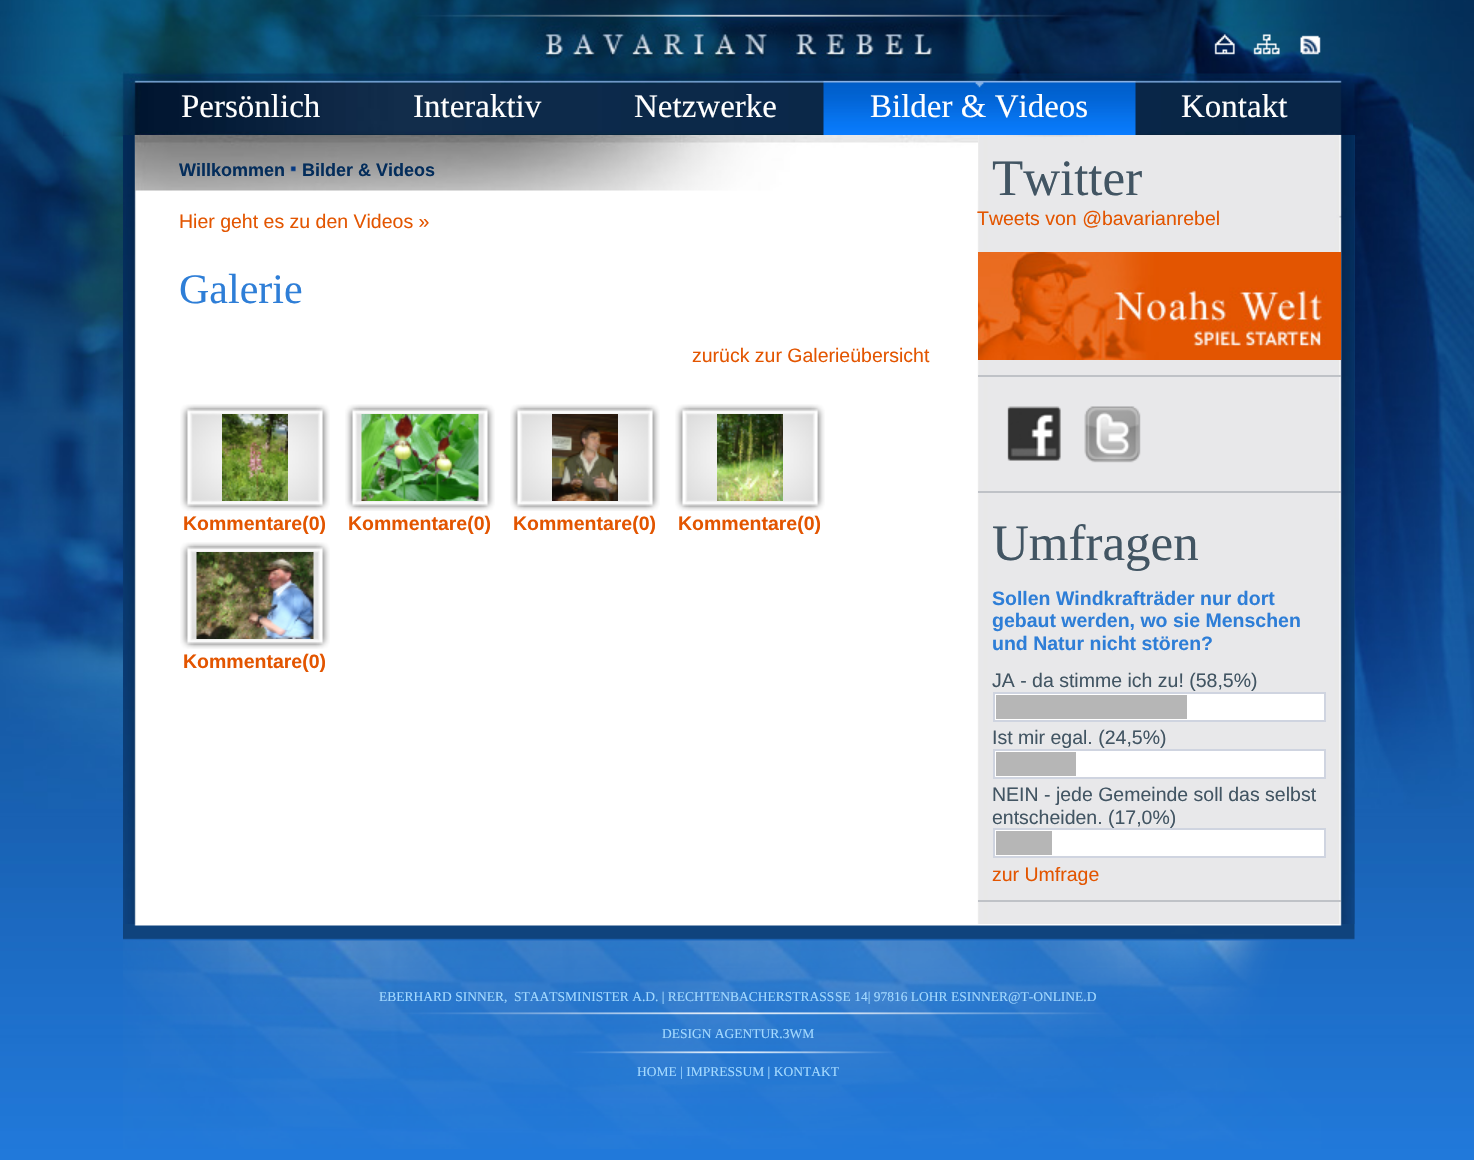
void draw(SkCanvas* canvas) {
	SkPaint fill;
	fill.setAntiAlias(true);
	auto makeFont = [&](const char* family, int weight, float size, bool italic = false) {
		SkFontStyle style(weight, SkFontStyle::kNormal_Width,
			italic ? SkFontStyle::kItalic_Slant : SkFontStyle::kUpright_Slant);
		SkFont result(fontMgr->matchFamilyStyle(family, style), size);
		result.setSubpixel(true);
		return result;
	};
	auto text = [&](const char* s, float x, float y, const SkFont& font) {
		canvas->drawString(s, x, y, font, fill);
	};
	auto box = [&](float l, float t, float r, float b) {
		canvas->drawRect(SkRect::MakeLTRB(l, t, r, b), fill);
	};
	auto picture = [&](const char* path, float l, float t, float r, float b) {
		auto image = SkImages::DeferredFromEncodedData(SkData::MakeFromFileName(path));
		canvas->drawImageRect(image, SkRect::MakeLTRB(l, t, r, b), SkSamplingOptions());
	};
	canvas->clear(0xFFFFFFFF);
	picture("image0.png", 0, 809, 1474, 1160);
	picture("image1.png", 0, 0, 1474, 809);
	picture("image2.png", 63, 0, 1413, 137);
	picture("image3.png", 1214, 34, 1235, 55);
	picture("image4.png", 1253, 34, 1280, 55);
	picture("image5.png", 1300, 35, 1321, 55);
	picture("image6.png", 823, 81, 1136, 135);
	picture("image7.png", 1354, 135, 1355, 924);
	picture("image8.png", 123, 135, 1355, 924);
	picture("image9.png", 135, 135, 978, 191);
	picture("image10.png", 290, 166, 296, 172);
	picture("image11.png", 180, 404, 330, 511);
	picture("image12.png", 222, 414, 288, 501);
	picture("image13.png", 345, 404, 495, 511);
	picture("image14.png", 361, 414, 479, 501);
	picture("image11.png", 510, 404, 660, 511);
	picture("image15.png", 552, 414, 618, 501);
	picture("image16.png", 675, 404, 825, 511);
	picture("image17.png", 717, 414, 783, 501);
	picture("image11.png", 180, 542, 330, 649);
	picture("image18.png", 196, 552, 314, 639);
	fill.setColor(0xFFBFC2C7);
	box(978, 375, 1341, 377);
	picture("image19.png", 978, 252, 1341, 360);
	box(978, 491, 1341, 493);
	picture("image20.png", 1007, 406, 1061, 461);
	picture("image21.png", 1084, 406, 1141, 463);
	box(978, 900, 1341, 902);
	fill.setColor(0xFFFFFFFF);
	canvas->drawRect(SkRect::MakeLTRB(994, 693, 1325, 721), fill);
	fill.setStyle(SkPaint::kStroke_Style);
	fill.setStrokeWidth(2);
	fill.setColor(0xFFCFD4E0);
	canvas->drawRect(SkRect::MakeLTRB(994, 693, 1325, 721), fill);
	fill.setStyle(SkPaint::kFill_Style);
	fill.setColor(0xFFB6B6B6);
	box(996, 695, 1187, 719);
	fill.setColor(0xFFFFFFFF);
	canvas->drawRect(SkRect::MakeLTRB(994, 750, 1325, 778), fill);
	fill.setStyle(SkPaint::kStroke_Style);
	fill.setColor(0xFFCFD4E0);
	canvas->drawRect(SkRect::MakeLTRB(994, 750, 1325, 778), fill);
	fill.setStyle(SkPaint::kFill_Style);
	fill.setColor(0xFFB6B6B6);
	box(996, 752, 1076, 776);
	fill.setColor(0xFFFFFFFF);
	canvas->drawRect(SkRect::MakeLTRB(994, 829, 1325, 857), fill);
	fill.setStyle(SkPaint::kStroke_Style);
	fill.setColor(0xFFCFD4E0);
	canvas->drawRect(SkRect::MakeLTRB(994, 829, 1325, 857), fill);
	fill.setStyle(SkPaint::kFill_Style);
	fill.setColor(0xFFB6B6B6);
	box(996, 831, 1052, 855);
	picture("image22.png", 123, 924, 1355, 1149);
	auto font1 = makeFont("Liberation Serif", 400, 33);
	fill.setColor(0xFFFFFFFF);
	text("Persönlich", 181, 117, font1);
	text("Interaktiv", 413, 117, font1);
	text("Netzwerke", 634, 117, font1);
	text("Bilder & Videos", 870, 117, font1);
	text("Kontakt", 1181, 117, font1);
	auto font2 = makeFont("Liberation Sans", 700, 18);
	fill.setColor(0xFF042D5B);
	text("Willkommen", 179, 176, font2);
	text("Bilder & Videos", 302, 176, font2);
	auto font3 = makeFont("Liberation Sans", 400, 19.5f);
	fill.setColor(0xFFE35500);
	text("Hier geht es zu den Videos »", 179, 228, font3);
	auto font4 = makeFont("Liberation Serif", 400, 42);
	fill.setColor(0xFF2E7ED7);
	text("Galerie", 179, 303, font4);
	fill.setColor(0xFFE35500);
	text("zurück zur Galerieübersicht", 692, 362, font3);
	auto font5 = makeFont("Liberation Sans", 700, 19.5f);
	text("Kommentare(0)", 183, 530, font5);
	text("Kommentare(0)", 348, 530, font5);
	text("Kommentare(0)", 513, 530, font5);
	text("Kommentare(0)", 678, 530, font5);
	text("Kommentare(0)", 183, 668, font5);
	auto font6 = makeFont("Liberation Serif", 400, 51);
	fill.setColor(0xFF425563);
	text("Twitter", 992, 195, font6);
	fill.setColor(0xFFE35500);
	text("Tweets von @bavarianrebel", 977, 225, font3);
	fill.setColor(0xFF425563);
	text("Umfragen", 992, 560, font6);
	fill.setColor(0xFF2E7ED7);
	text("Sollen Windkrafträder nur dort", 992, 605, font5);
	text("gebaut werden, wo sie Menschen", 992, 627, font5);
	text("und Natur nicht stören?", 992, 650, font5);
	fill.setColor(0xFF425563);
	text("JA - da stimme ich zu! (58,5%)", 992, 687, font3);
	text("Ist mir egal. (24,5%)", 992, 744, font3);
	text("NEIN - jede Gemeinde soll das selbst", 992, 801, font3);
	text("entscheiden. (17,0%)", 992, 824, font3);
	fill.setColor(0xFFE35500);
	text("zur Umfrage", 992, 881, font3);
	auto font7 = makeFont("Liberation Serif", 400, 13.5f);
	fill.setColor(0xFFA3D9FF);
	text("EBERHARD SINNER,  STAATSMINISTER A.D. | RECHTENBACHERSTRASS", 379, 1001, font7);
	text("SE 14| 97816 LOHR ESINNER@T-ONLINE.D", 835, 1001, font7);
	text("DESIGN AGENTUR.3WM", 662, 1038, font7);
	text("HOME | IMPRESSUM | KONTAKT", 637, 1076, font7);
}
